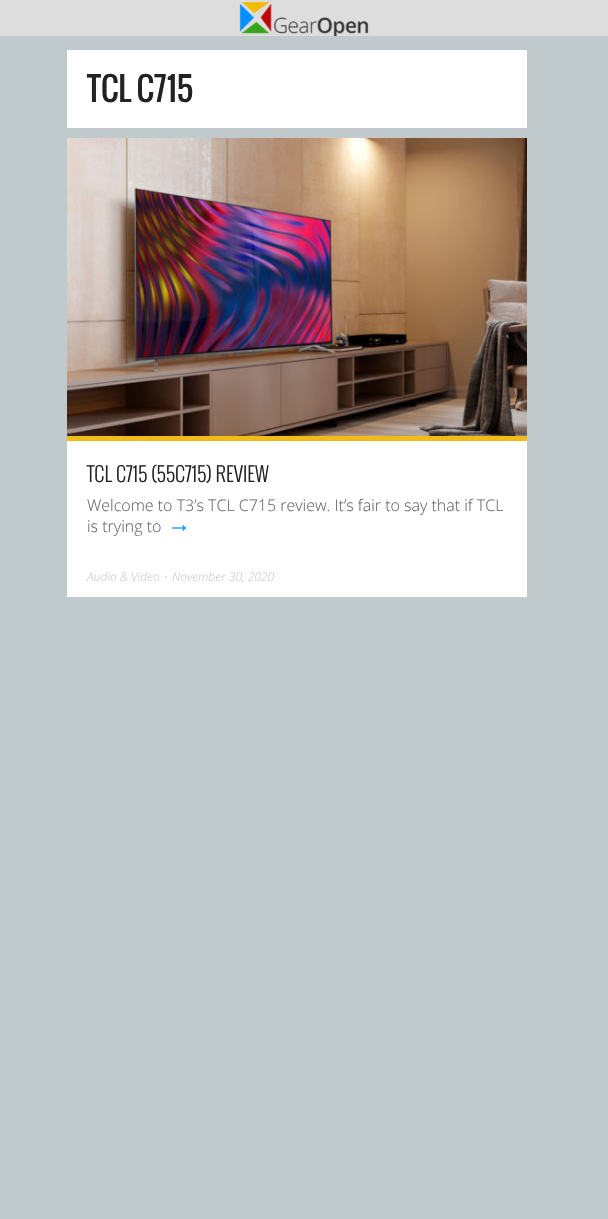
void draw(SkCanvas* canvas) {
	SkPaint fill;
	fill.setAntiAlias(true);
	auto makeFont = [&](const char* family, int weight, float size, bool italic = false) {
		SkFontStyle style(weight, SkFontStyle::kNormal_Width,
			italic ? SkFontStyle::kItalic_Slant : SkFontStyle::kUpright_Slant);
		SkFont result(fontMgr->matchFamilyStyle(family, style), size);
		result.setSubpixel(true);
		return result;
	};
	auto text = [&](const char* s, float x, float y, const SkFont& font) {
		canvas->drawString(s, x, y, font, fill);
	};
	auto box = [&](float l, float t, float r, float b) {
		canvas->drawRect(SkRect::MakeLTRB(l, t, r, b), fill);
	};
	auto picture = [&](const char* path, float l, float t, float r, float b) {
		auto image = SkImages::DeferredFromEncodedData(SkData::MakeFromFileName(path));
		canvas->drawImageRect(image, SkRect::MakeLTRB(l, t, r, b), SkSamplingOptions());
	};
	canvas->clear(0xFFC0C9CC);
	fill.setColor(0xFFDDDDDD);
	box(0, 0, 608, 36);
	picture("image0.png", 239, 2, 369, 36);
	fill.setColor(0xFFFFFFFF);
	box(67, 50, 527, 128);
	box(67, 441, 527, 597);
	picture("image1.png", 67, 138, 527, 436);
	fill.setColor(0xFFF2BB16);
	box(67, 436, 527, 441);
	auto font1 = makeFont("Oswald", 400, 32);
	fill.setColor(0xFF222222);
	text("TCL C715", 87, 102, font1);
	auto font2 = makeFont("Oswald", 300, 20);
	text("TCL C715 (55C715) REVIEW", 87, 482, font2);
	auto font3 = makeFont("Open Sans", 300, 16);
	fill.setColor(0xFF666666);
	text("Welcome to T3’s TCL C715 review. It’s fair to say that if TCL", 87, 511, font3);
	text("is trying to", 87, 532, font3);
	auto font4 = makeFont("Liberation Sans", 400, 24);
	fill.setColor(0xFF008CFF);
	text("→", 167, 532, font4);
	auto font5 = makeFont("Open Sans", 300, 12, true);
	fill.setColor(0xFFCCCCCC);
	text("Audio & Video", 87, 581, font5);
	auto font6 = makeFont("DejaVu Sans", 400, 12, true);
	text("⋅", 163, 581, font6);
	text("November 30, 2020", 172, 581, font5);
}
